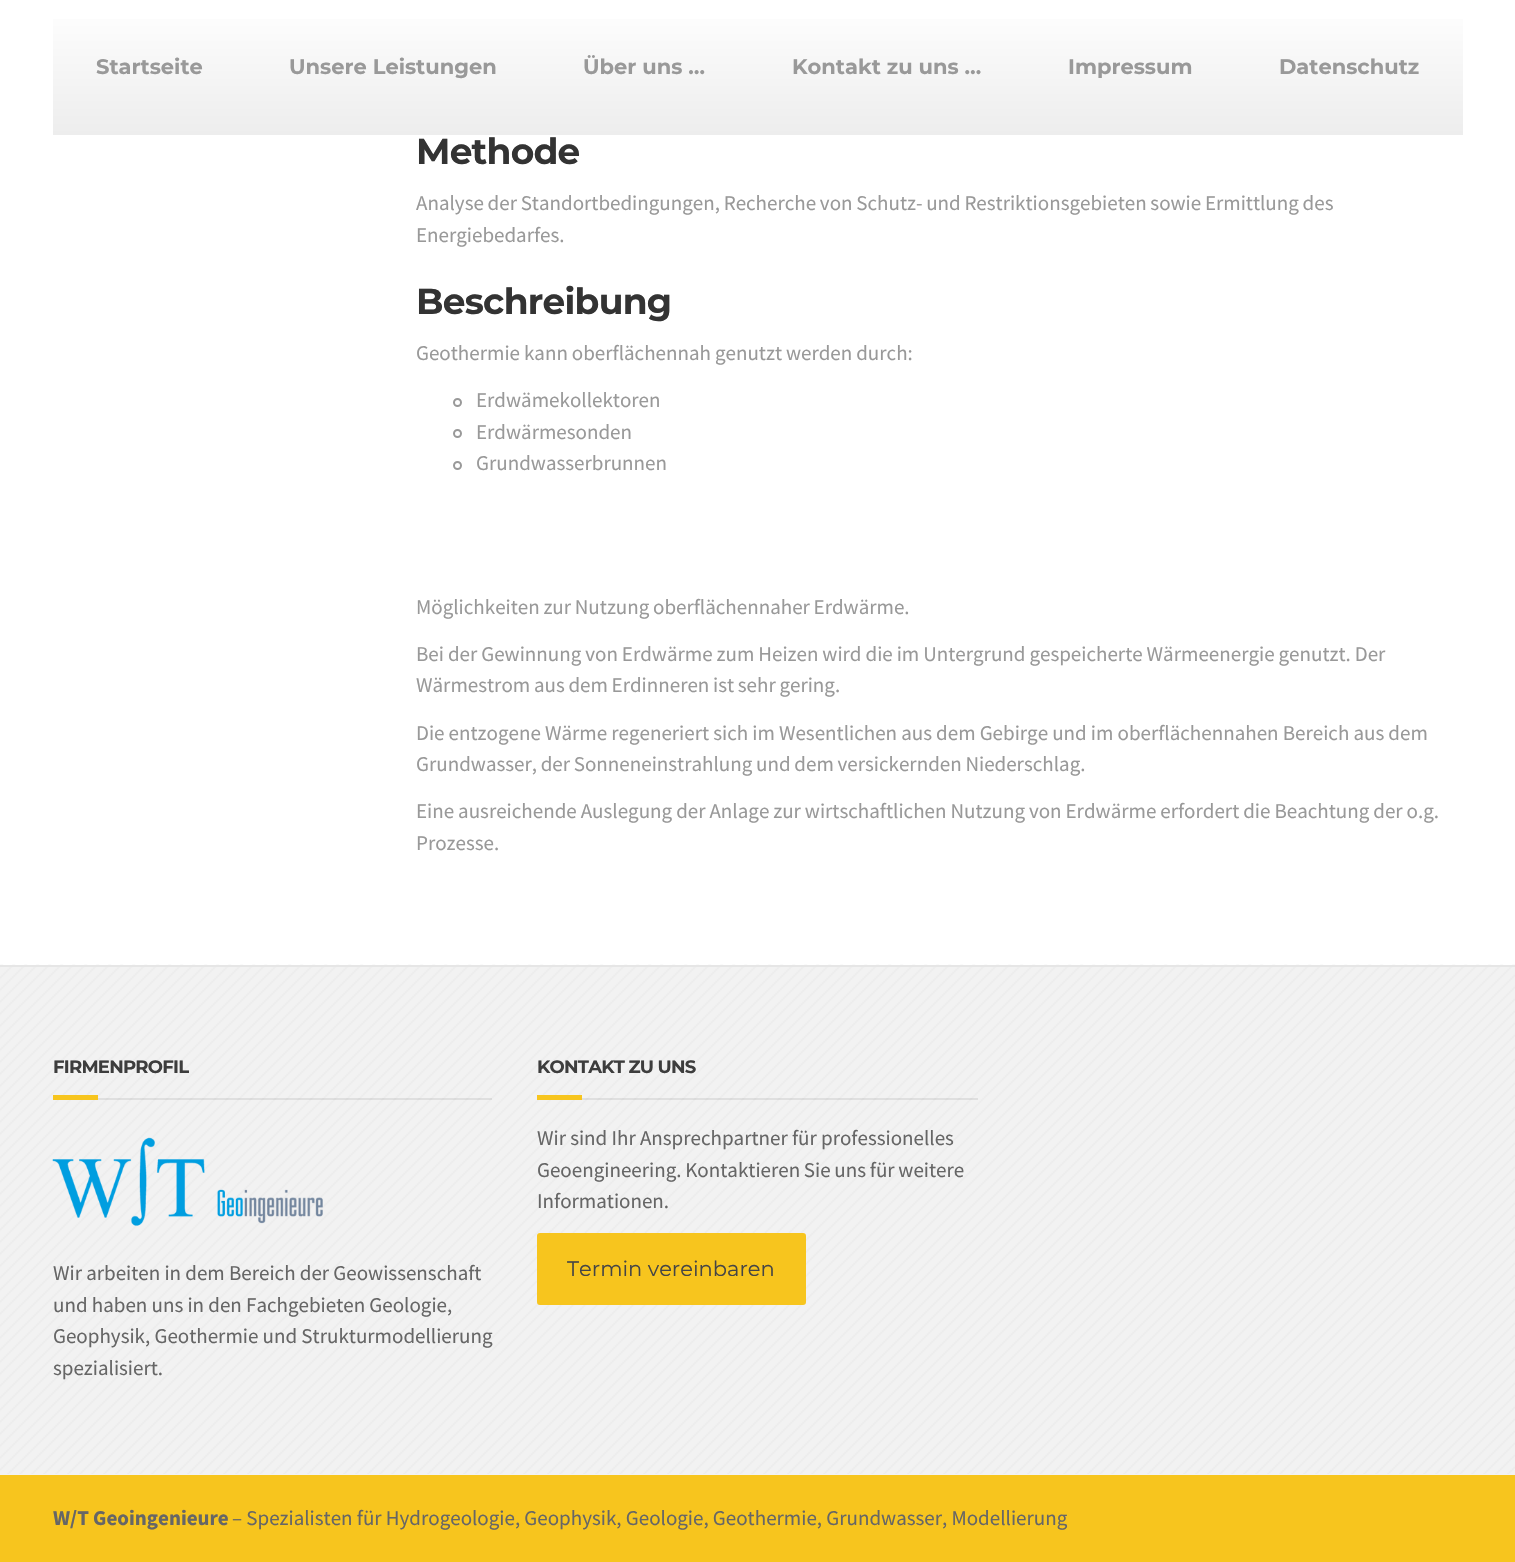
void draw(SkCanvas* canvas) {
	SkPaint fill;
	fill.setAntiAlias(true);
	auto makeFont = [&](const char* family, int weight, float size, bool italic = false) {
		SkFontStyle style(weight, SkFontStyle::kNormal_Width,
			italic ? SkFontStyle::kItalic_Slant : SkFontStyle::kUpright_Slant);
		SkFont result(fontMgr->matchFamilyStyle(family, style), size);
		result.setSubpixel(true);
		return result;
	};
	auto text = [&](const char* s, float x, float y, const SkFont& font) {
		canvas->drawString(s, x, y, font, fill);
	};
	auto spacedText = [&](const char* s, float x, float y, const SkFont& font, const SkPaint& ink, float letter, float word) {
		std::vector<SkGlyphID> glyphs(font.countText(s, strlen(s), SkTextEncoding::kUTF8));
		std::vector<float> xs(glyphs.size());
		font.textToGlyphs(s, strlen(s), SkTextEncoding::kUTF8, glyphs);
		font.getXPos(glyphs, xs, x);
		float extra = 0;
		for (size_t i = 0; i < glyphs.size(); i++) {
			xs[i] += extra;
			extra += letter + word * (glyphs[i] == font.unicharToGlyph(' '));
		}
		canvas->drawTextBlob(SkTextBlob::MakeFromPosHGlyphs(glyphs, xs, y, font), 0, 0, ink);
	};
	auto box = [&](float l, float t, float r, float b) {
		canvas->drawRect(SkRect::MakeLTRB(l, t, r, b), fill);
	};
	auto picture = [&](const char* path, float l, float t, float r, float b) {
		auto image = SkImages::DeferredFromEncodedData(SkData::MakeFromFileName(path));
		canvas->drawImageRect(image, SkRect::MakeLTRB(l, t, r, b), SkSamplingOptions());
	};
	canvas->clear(0xFFFFFFFF);
	{
		const SkColor colors[] = {0xFFFFFFFF, 0xFFEDEDED};
		const float stops[] = {0, 1};
		const SkPoint ends[] = {{758, 0}, {758, 135}};
		fill.setShader(SkGradientShader::MakeLinear(ends, colors, stops, 2, SkTileMode::kClamp));
		fill.setAlpha(255);
	}
	box(53, 19, 1463, 135);
	fill.setStyle(SkPaint::kStroke_Style);
	fill.setStrokeWidth(2);
	fill.setShader(nullptr);
	fill.setColor(0xFF999999);
	canvas->drawCircle(457.5f, 402.5f, 3.5f, fill);
	canvas->drawCircle(457.5f, 433.5f, 3.5f, fill);
	canvas->drawCircle(457.5f, 465.5f, 3.5f, fill);
	fill.setStyle(SkPaint::kFill_Style);
	fill.setColor(0xFFF2F2F2);
	box(0, 967, 1515, 1475);
	picture("image0.png", 0, 964, 1515, 1474);
	fill.setColor(0xFFE6E6E6);
	box(0, 965, 1515, 967);
	fill.setColor(0x14000000);
	box(98, 1098, 492, 1100);
	fill.setColor(0xFFF7C51E);
	box(53, 1095, 98, 1100);
	picture("image1.png", 52, 1137, 323, 1226);
	fill.setColor(0x14000000);
	box(582, 1098, 978, 1100);
	fill.setColor(0xFFF7C51E);
	box(537, 1095, 582, 1100);
	canvas->drawRoundRect(SkRect::MakeLTRB(538.5f, 1234.5f, 804.5f, 1303.5f), 1.5f, 1.5f, fill);
	fill.setStyle(SkPaint::kStroke_Style);
	fill.setStrokeWidth(3);
	canvas->drawRoundRect(SkRect::MakeLTRB(538.5f, 1234.5f, 804.5f, 1303.5f), 1.5f, 1.5f, fill);
	fill.setStyle(SkPaint::kFill_Style);
	box(0, 1475, 1515, 1562);
	auto font1 = makeFont("Montserrat", 700, 21);
	fill.setColor(0xFF999999);
	text("Startseite", 96, 74, font1);
	text("Unsere Leistungen", 289, 74, font1);
	text("Über uns …", 583, 74, font1);
	text("Kontakt zu uns …", 792, 74, font1);
	text("Impressum", 1068, 74, font1);
	text("Datenschutz", 1279, 74, font1);
	auto font2 = makeFont("Montserrat", 700, 36);
	fill.setColor(0xFF333333);
	spacedText("Methode", 416, 164, font2, fill, -0.75f, 0);
	auto font3 = makeFont("Source Sans Pro", 400, 21);
	fill.setColor(0xFF999999);
	spacedText("Analyse der Standortbedingungen, Recherche von Schutz- und Restriktionsgebieten sowie Ermittlung des", 416, 210, font3, fill, 0, -0.5f);
	text("Energiebedarfes.", 416, 242, font3);
	fill.setColor(0xFF333333);
	spacedText("Beschreibung", 416, 314, font2, fill, -0.75f, 0);
	fill.setColor(0xFF999999);
	spacedText("Geothermie kann oberflächennah genutzt werden durch:", 416, 360, font3, fill, 0, -0.25f);
	text("Erdwämekollektoren", 476, 407, font3);
	text("Erdwärmesonden", 476, 439, font3);
	text("Grundwasserbrunnen", 476, 470, font3);
	spacedText("Möglichkeiten zur Nutzung oberflächennaher Erdwärme.", 416, 614, font3, fill, 0, -0.5f);
	spacedText("Bei der Gewinnung von Erdwärme zum Heizen wird die im Untergrund gespeicherte Wärmeenergie genutzt. Der", 416, 661, font3, fill, 0, -0.25f);
	spacedText("Wärmestrom aus dem Erdinneren ist sehr gering.", 416, 692, font3, fill, 0, -0.5f);
	spacedText("Die entzogene Wärme regeneriert sich im Wesentlichen aus dem Gebirge und im oberflächennahen Bereich aus dem", 416, 740, font3, fill, 0, -0.1f);
	spacedText("Grundwasser, der Sonneneinstrahlung und dem versickernden Niederschlag.", 416, 771, font3, fill, 0, -0.5f);
	spacedText("Eine ausreichende Auslegung der Anlage zur wirtschaftlichen Nutzung von Erdwärme erfordert die Beachtung der o.g.", 416, 818, font3, fill, 0, -0.25f);
	text("Prozesse.", 416, 850, font3);
	auto font4 = makeFont("Montserrat", 700, 18);
	fill.setColor(0xFF3D3D3D);
	spacedText("FIRMENPROFIL", 53, 1073, font4, fill, -0.75f, 0);
	fill.setColor(0xFF666666);
	text("Wir arbeiten in dem Bereich der Geowissenschaft", 53, 1280, font3);
	text("und haben uns in den Fachgebieten Geologie,", 53, 1312, font3);
	text("Geophysik, Geothermie und Strukturmodellierung", 53, 1343, font3);
	text("spezialisiert.", 53, 1375, font3);
	fill.setColor(0xFF3D3D3D);
	spacedText("KONTAKT ZU UNS", 537, 1073, font4, fill, -0.75f, 0);
	fill.setColor(0xFF666666);
	text("Wir sind Ihr Ansprechpartner für professionelles", 537, 1145, font3);
	spacedText("Geoengineering. Kontaktieren Sie uns für weitere", 537, 1177, font3, fill, 0, -0.5f);
	text("Informationen.", 537, 1208, font3);
	auto font5 = makeFont("Montserrat", 400, 21);
	fill.setColor(0xFF454545);
	text("Termin vereinbaren", 567, 1276, font5);
	auto font6 = makeFont("Source Sans Pro", 700, 21);
	fill.setColor(0xFF666666);
	text("W/T Geoingenieure", 53, 1525, font6);
	text("– Spezialisten für Hydrogeologie, Geophysik, Geologie, Geothermie, Grundwasser, Modellierung", 232, 1525, font3);
}
